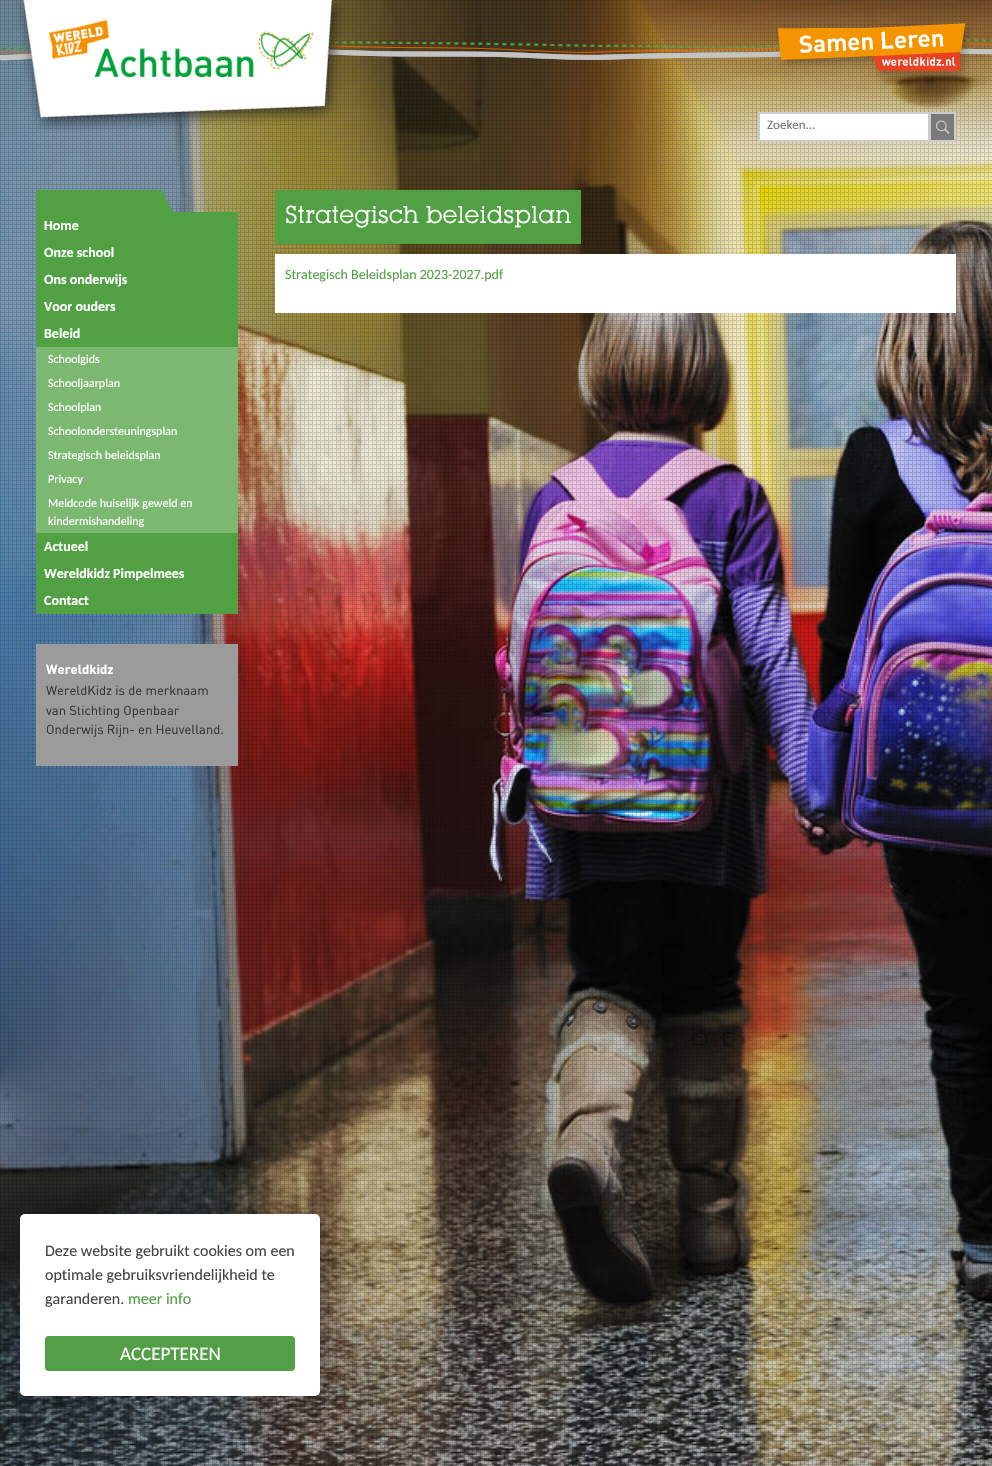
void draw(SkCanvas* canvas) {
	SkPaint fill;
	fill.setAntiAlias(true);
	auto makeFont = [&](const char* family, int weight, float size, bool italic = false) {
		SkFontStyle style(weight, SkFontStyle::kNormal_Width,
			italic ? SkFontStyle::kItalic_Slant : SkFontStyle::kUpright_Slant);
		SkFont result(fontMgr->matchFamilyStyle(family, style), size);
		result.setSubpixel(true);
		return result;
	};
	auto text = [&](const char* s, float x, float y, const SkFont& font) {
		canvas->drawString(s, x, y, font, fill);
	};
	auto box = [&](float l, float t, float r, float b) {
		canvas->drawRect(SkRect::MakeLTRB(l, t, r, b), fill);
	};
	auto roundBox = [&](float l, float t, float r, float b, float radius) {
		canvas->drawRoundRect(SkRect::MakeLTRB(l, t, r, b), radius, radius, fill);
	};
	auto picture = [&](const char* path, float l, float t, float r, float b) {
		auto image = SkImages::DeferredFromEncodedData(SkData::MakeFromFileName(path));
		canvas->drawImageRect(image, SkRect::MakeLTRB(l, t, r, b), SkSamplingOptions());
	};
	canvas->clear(0xFFFFFFFF);
	picture("image0.png", 0, 0, 992, 1466);
	picture("image1.png", 0, 0, 992, 1466);
	picture("image2.png", 0, 39, 992, 61);
	picture("image3.png", 17, 0, 344, 132);
	picture("image4.png", 49, 20, 313, 77);
	picture("image5.png", 777, 23, 972, 80);
	fill.setColor(0xFF7A7A7A);
	canvas->drawRect(SkRect::MakeLTRB(930, 113, 955, 141), fill);
	fill.setStyle(SkPaint::kStroke_Style);
	fill.setStrokeWidth(2);
	fill.setColor(0xFFCCCCCC);
	canvas->drawRect(SkRect::MakeLTRB(930, 113, 955, 141), fill);
	fill.setStyle(SkPaint::kFill_Style);
	fill.setColor(0xFFFFFFFF);
	canvas->drawRect(SkRect::MakeLTRB(759, 113, 929, 141), fill);
	fill.setStyle(SkPaint::kStroke_Style);
	fill.setColor(0xFFCCCCCC);
	canvas->drawRect(SkRect::MakeLTRB(759, 113, 929, 141), fill);
	picture("image6.png", 936, 120, 950, 134);
	picture("image7.png", 36, 190, 174, 212);
	fill.setStyle(SkPaint::kFill_Style);
	fill.setColor(0xFF51A044);
	box(36, 212, 238, 347);
	fill.setColor(0xFF7DB873);
	box(36, 347, 238, 533);
	fill.setColor(0xFF51A044);
	box(36, 533, 238, 614);
	fill.setColor(0xFF9B9B9B);
	box(36, 644, 238, 766);
	fill.setColor(0xFF51A044);
	box(275, 190, 581, 244);
	fill.setColor(0xFFFFFFFF);
	box(275, 254, 956, 313);
	fill.setColor(0x4D000000);
	fill.setMaskFilter(SkMaskFilter::MakeBlur(kNormal_SkBlurStyle, 15));
	canvas->drawRoundRect(SkRect::MakeLTRB(20, 1214, 320, 1396), 5, 5, fill);
	fill.setMaskFilter(nullptr);
	fill.setColor(0xFFFFFFFF);
	roundBox(20, 1214, 320, 1396, 5);
	fill.setColor(0xFF529F46);
	roundBox(45, 1336, 295, 1371, 4);
	auto font1 = makeFont("Carlito", 400, 13);
	fill.setColor(0xFF757575);
	text("Zoeken...", 767, 129, font1);
	auto font2 = makeFont("Carlito", 700, 14);
	fill.setColor(0xFFFFFFFF);
	text("Home", 44, 230, font2);
	text("Onze school", 44, 257, font2);
	text("Ons onderwijs", 44, 284, font2);
	text("Voor ouders", 44, 311, font2);
	text("Beleid", 44, 338, font2);
	auto font3 = makeFont("Carlito", 400, 12);
	text("Schoolgids", 48, 363, font3);
	text("Schooljaarplan", 48, 387, font3);
	text("Schoolplan", 48, 411, font3);
	text("Schoolondersteuningsplan", 48, 435, font3);
	text("Strategisch beleidsplan", 48, 459, font3);
	text("Privacy", 48, 483, font3);
	text("Meldcode huiselijk geweld en", 48, 507, font3);
	text("kindermishandeling", 48, 525, font3);
	text("Actueel", 44, 551, font2);
	text("Wereldkidz Pimpelmees", 44, 578, font2);
	text("Contact", 44, 605, font2);
	auto font4 = makeFont("DIN", 700, 13);
	text("Wereldkidz", 46, 674, font4);
	auto font5 = makeFont("DIN", 400, 13);
	fill.setColor(0xFF333333);
	text("WereldKidz is de merknaam", 46, 695, font5);
	text("van Stichting Openbaar", 46, 715, font5);
	text("Onderwijs Rijn- en Heuvelland.", 46, 734, font5);
	auto font6 = makeFont("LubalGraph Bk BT", 400, 24);
	fill.setColor(0xFFFFFFFF);
	text("Strategisch beleidsplan", 285, 223, font6);
	auto font7 = makeFont("Carlito", 400, 14);
	fill.setColor(0xFF51A044);
	text("Strategisch Beleidsplan 2023-2027.pdf", 285, 279, font7);
	auto font8 = makeFont("Carlito", 400, 16);
	fill.setColor(0xFF444444);
	text("Deze website gebruikt cookies om een", 45, 1256, font8);
	text("optimale gebruiksvriendelijkheid te", 45, 1280, font8);
	text("garanderen.", 45, 1304, font8);
	fill.setColor(0xFF51A044);
	text("meer info", 128, 1304, font8);
	auto font9 = makeFont("Carlito", 400, 19);
	fill.setColor(0xFFFFFFFF);
	text("ACCEPTEREN", 120, 1360, font9);
}
